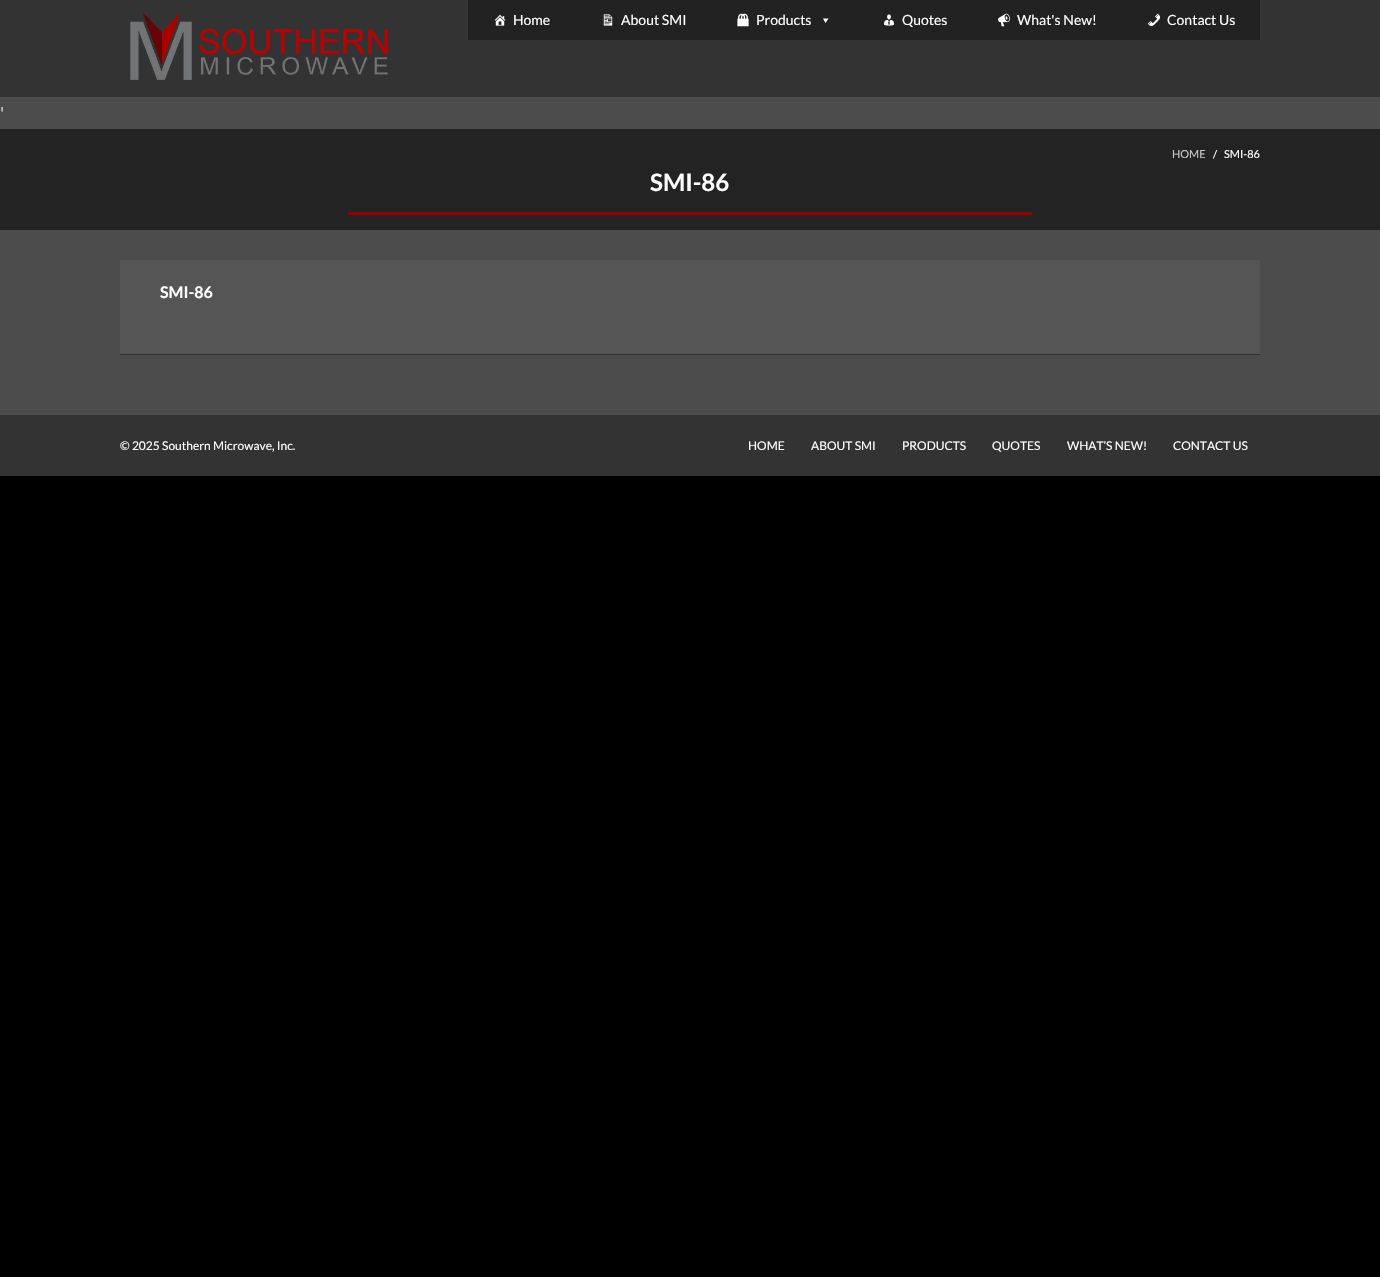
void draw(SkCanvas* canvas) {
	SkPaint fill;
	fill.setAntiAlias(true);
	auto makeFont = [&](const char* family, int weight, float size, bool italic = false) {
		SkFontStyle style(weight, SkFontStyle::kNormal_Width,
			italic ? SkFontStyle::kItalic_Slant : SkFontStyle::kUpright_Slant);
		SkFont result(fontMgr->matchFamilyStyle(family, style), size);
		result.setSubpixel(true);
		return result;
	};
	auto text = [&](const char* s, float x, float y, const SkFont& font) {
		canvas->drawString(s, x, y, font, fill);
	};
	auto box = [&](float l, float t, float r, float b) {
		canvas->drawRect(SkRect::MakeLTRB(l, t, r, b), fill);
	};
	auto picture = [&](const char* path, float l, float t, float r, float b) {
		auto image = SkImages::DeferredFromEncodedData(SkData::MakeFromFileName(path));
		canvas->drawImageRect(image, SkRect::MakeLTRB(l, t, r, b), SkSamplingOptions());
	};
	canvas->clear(0xFF000000);
	fill.setColor(0xFF4C4C4C);
	box(0, 97, 1380, 415);
	fill.setColor(0xFF333333);
	box(0, 0, 1380, 97);
	picture("image0.png", 130, 13, 388, 80);
	fill.setColor(0xFF222222);
	box(468, 0, 1260, 40);
	picture("image1.png", 494, 14, 506, 26);
	picture("image2.png", 603, 14, 613, 26);
	picture("image3.png", 737, 13, 749, 27);
	fill.setColor(0xFFFFFFFF);
	canvas->drawPath(SkPathBuilder().moveTo(828.5f, 18.5f).lineTo(825.5f, 23).lineTo(823, 18.5f).close().detach(), fill);
	picture("image4.png", 884, 14, 894, 26);
	picture("image5.png", 998, 13, 1010, 27);
	picture("image6.png", 1147, 13, 1161, 26);
	fill.setColor(0xFF232323);
	box(0, 129, 1380, 230);
	fill.setColor(0xFF990000);
	box(348, 212, 1032, 215);
	fill.setColor(0xFF555555);
	box(120, 260, 1260, 354);
	fill.setColor(0xFF333333);
	box(120, 354, 1260, 355);
	box(0, 415, 1380, 476);
	auto font1 = makeFont("Lato", 400, 14);
	fill.setColor(0xFFFFFFFF);
	text("Home", 513, 25, font1);
	text("About SMI", 621, 25, font1);
	text("Products", 756, 25, font1);
	text("Quotes", 902, 25, font1);
	text("What's New!", 1017, 25, font1);
	text("Contact Us", 1167, 25, font1);
	auto font2 = makeFont("Lato", 400, 18);
	fill.setColor(0xFFCCCCCC);
	text("'", 0, 120, font2);
	auto font3 = makeFont("Lato", 400, 11);
	fill.setColor(0xFFC6C6C7);
	text("HOME", 1172, 158, font3);
	fill.setColor(0xFFFFFFFF);
	text("/", 1213, 158, font3);
	text("SMI-86", 1224, 158, font3);
	auto font4 = makeFont("Lato", 700, 24);
	text("SMI-86", 650, 191, font4);
	auto font5 = makeFont("Lato", 700, 16);
	text("SMI-86", 160, 298, font5);
	auto font6 = makeFont("Lato", 400, 12);
	text("© 2025 Southern Microwave, Inc.", 120, 450, font6);
	text("HOME", 748, 450, font6);
	text("ABOUT SMI", 811, 450, font6);
	text("PRODUCTS", 902, 450, font6);
	text("QUOTES", 992, 450, font6);
	text("WHAT’S NEW!", 1067, 450, font6);
	text("CONTACT US", 1173, 450, font6);
}
